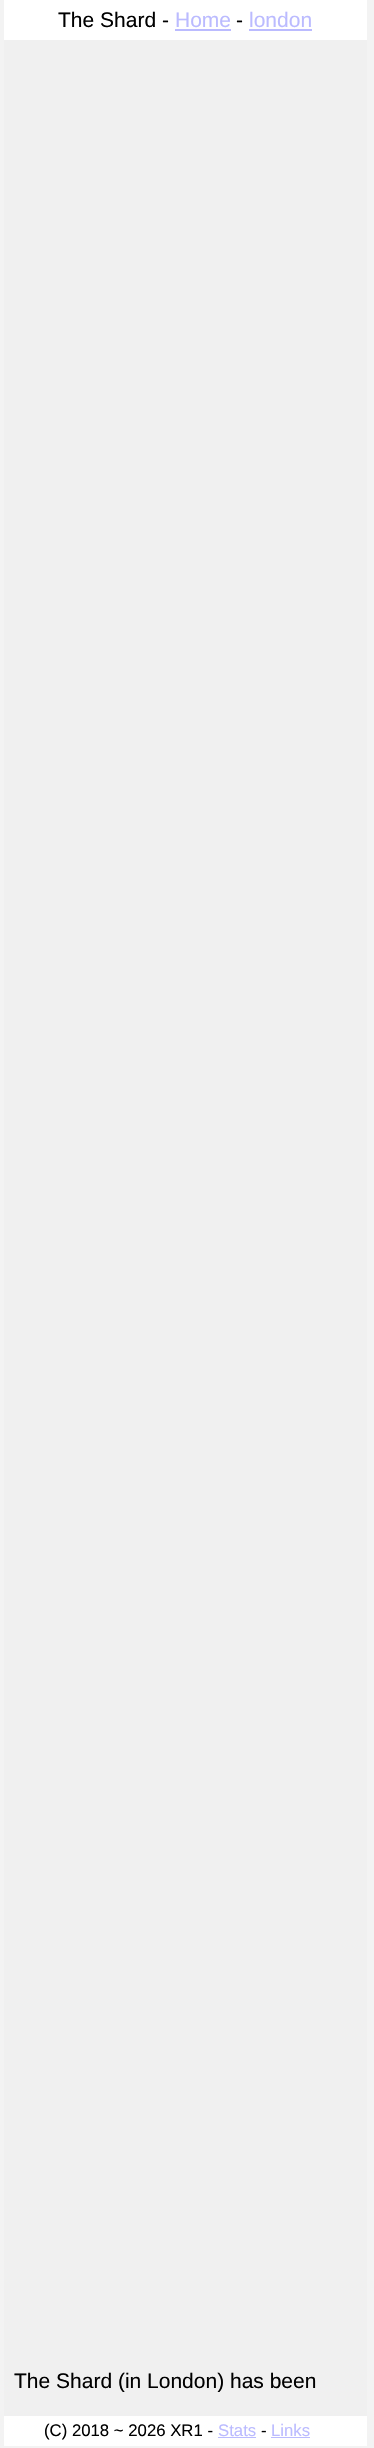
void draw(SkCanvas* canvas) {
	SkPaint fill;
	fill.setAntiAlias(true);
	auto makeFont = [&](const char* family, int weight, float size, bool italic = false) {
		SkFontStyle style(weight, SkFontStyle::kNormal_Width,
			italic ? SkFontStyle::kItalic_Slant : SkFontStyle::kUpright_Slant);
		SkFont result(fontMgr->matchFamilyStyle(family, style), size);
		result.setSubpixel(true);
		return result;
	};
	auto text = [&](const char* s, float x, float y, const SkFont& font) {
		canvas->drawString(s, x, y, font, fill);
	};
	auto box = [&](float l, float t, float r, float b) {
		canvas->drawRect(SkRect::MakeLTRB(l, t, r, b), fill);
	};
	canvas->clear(0xFFF3F3F3);
	fill.setColor(0xFFF0F0F0);
	box(4, 40, 367, 2416);
	fill.setColor(0xFFFFFFFF);
	box(4, 0, 367, 40);
	fill.setColor(0xFFBBBBFF);
	box(175, 29, 231, 31);
	box(249, 29, 312, 31);
	fill.setColor(0xFFFFFFFF);
	box(4, 2416, 367, 2446);
	fill.setColor(0xFFBBBBFF);
	box(218, 2437, 256, 2438);
	box(271, 2437, 310, 2438);
	auto font1 = makeFont("Liberation Sans", 400, 21);
	fill.setColor(0xFF000000);
	text("The Shard -", 58, 27, font1);
	fill.setColor(0xFFBBBBFF);
	text("Home", 175, 27, font1);
	fill.setColor(0xFF000000);
	text("-", 236, 27, font1);
	fill.setColor(0xFFBBBBFF);
	text("london", 249, 27, font1);
	canvas->save();
	canvas->clipRect(SkRect::MakeLTRB(14, 40, 373, 2392));
	fill.setColor(0xFF000000);
	text("The Shard (in London) has been", 14, 2388, font1);
	canvas->restore();
	auto font2 = makeFont("Liberation Sans", 400, 16.75f);
	text("(C) 2018 ~ 2026 XR1 -", 44, 2436, font2);
	fill.setColor(0xFFBBBBFF);
	text("Stats", 218, 2436, font2);
	fill.setColor(0xFF000000);
	text("-", 261, 2436, font2);
	fill.setColor(0xFFBBBBFF);
	text("Links", 271, 2436, font2);
}
